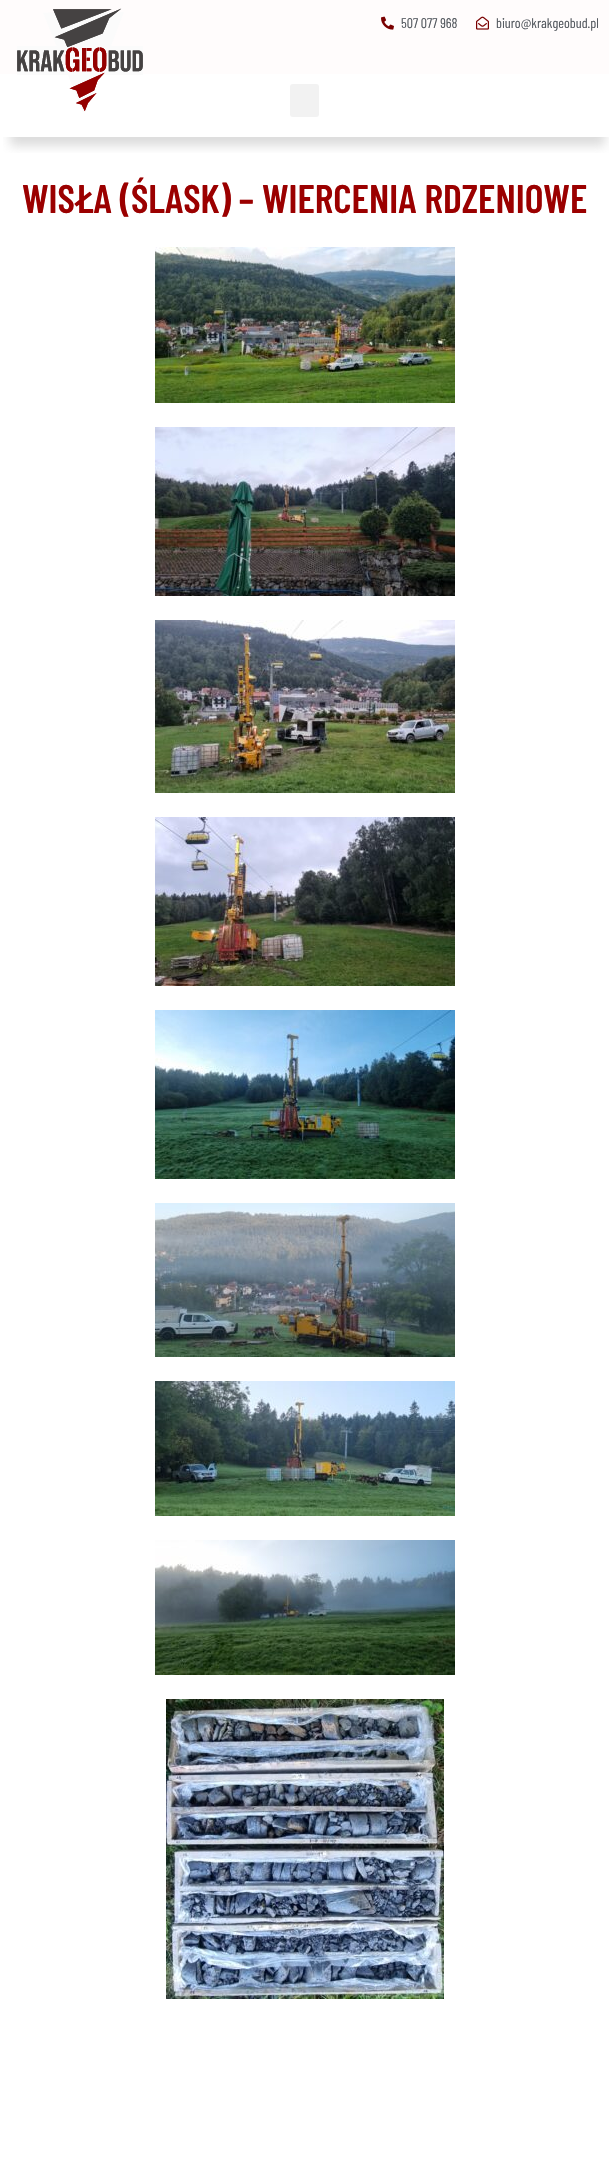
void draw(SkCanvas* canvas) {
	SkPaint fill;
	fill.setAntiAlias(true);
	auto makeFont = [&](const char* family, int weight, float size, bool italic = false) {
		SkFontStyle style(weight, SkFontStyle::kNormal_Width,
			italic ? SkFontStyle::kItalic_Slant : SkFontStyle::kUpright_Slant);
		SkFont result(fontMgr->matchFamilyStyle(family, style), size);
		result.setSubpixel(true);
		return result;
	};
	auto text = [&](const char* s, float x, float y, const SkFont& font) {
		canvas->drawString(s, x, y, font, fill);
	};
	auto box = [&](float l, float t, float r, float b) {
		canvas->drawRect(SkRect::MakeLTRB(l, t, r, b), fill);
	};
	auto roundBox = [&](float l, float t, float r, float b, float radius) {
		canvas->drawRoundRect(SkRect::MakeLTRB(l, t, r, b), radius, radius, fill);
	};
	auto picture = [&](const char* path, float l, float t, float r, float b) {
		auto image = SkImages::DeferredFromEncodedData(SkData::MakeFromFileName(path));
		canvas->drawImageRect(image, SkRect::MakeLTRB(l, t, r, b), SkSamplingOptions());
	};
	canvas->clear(0xFFFFFFFF);
	fill.setColor(0xFFFFFCFC);
	box(0, 0, 609, 74);
	canvas->save();
	canvas->clipRect(SkRect::MakeLTRB(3, 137, 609, 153));
	fill.setColor(0x40757575);
	fill.setMaskFilter(SkMaskFilter::MakeBlur(kNormal_SkBlurStyle, 5));
	canvas->drawRect(SkRect::MakeLTRB(10, 97, 605, 146), fill);
	fill.setMaskFilter(nullptr);
	canvas->restore();
	picture("image0.png", 17, 8, 143, 112);
	picture("image1.png", 381, 16, 394, 30);
	picture("image2.png", 476, 16, 489, 30);
	fill.setColor(0xFFF2F2F2);
	roundBox(290, 84, 319, 117, 3);
	picture("image3.png", 155, 247, 455, 403);
	picture("image4.png", 155, 427, 455, 596);
	picture("image5.png", 155, 620, 455, 793);
	picture("image6.png", 155, 817, 455, 986);
	picture("image7.png", 155, 1010, 455, 1179);
	picture("image8.png", 155, 1203, 455, 1357);
	picture("image9.png", 155, 1381, 455, 1516);
	picture("image10.png", 155, 1540, 455, 1675);
	picture("image11.png", 166, 1699, 444, 1999);
	auto font1 = makeFont("Barlow Condensed", 400, 14);
	fill.setColor(0xFF54595F);
	text("507 077 968", 401, 28, font1);
	text("biuro@krakgeobud.pl", 496, 28, font1);
	auto font2 = makeFont("Barlow Condensed", 600, 40);
	fill.setColor(0xFF9B0000);
	text("WISŁA (ŚLASK) – WIERCENIA RDZENIOWE", 22, 213, font2);
}
